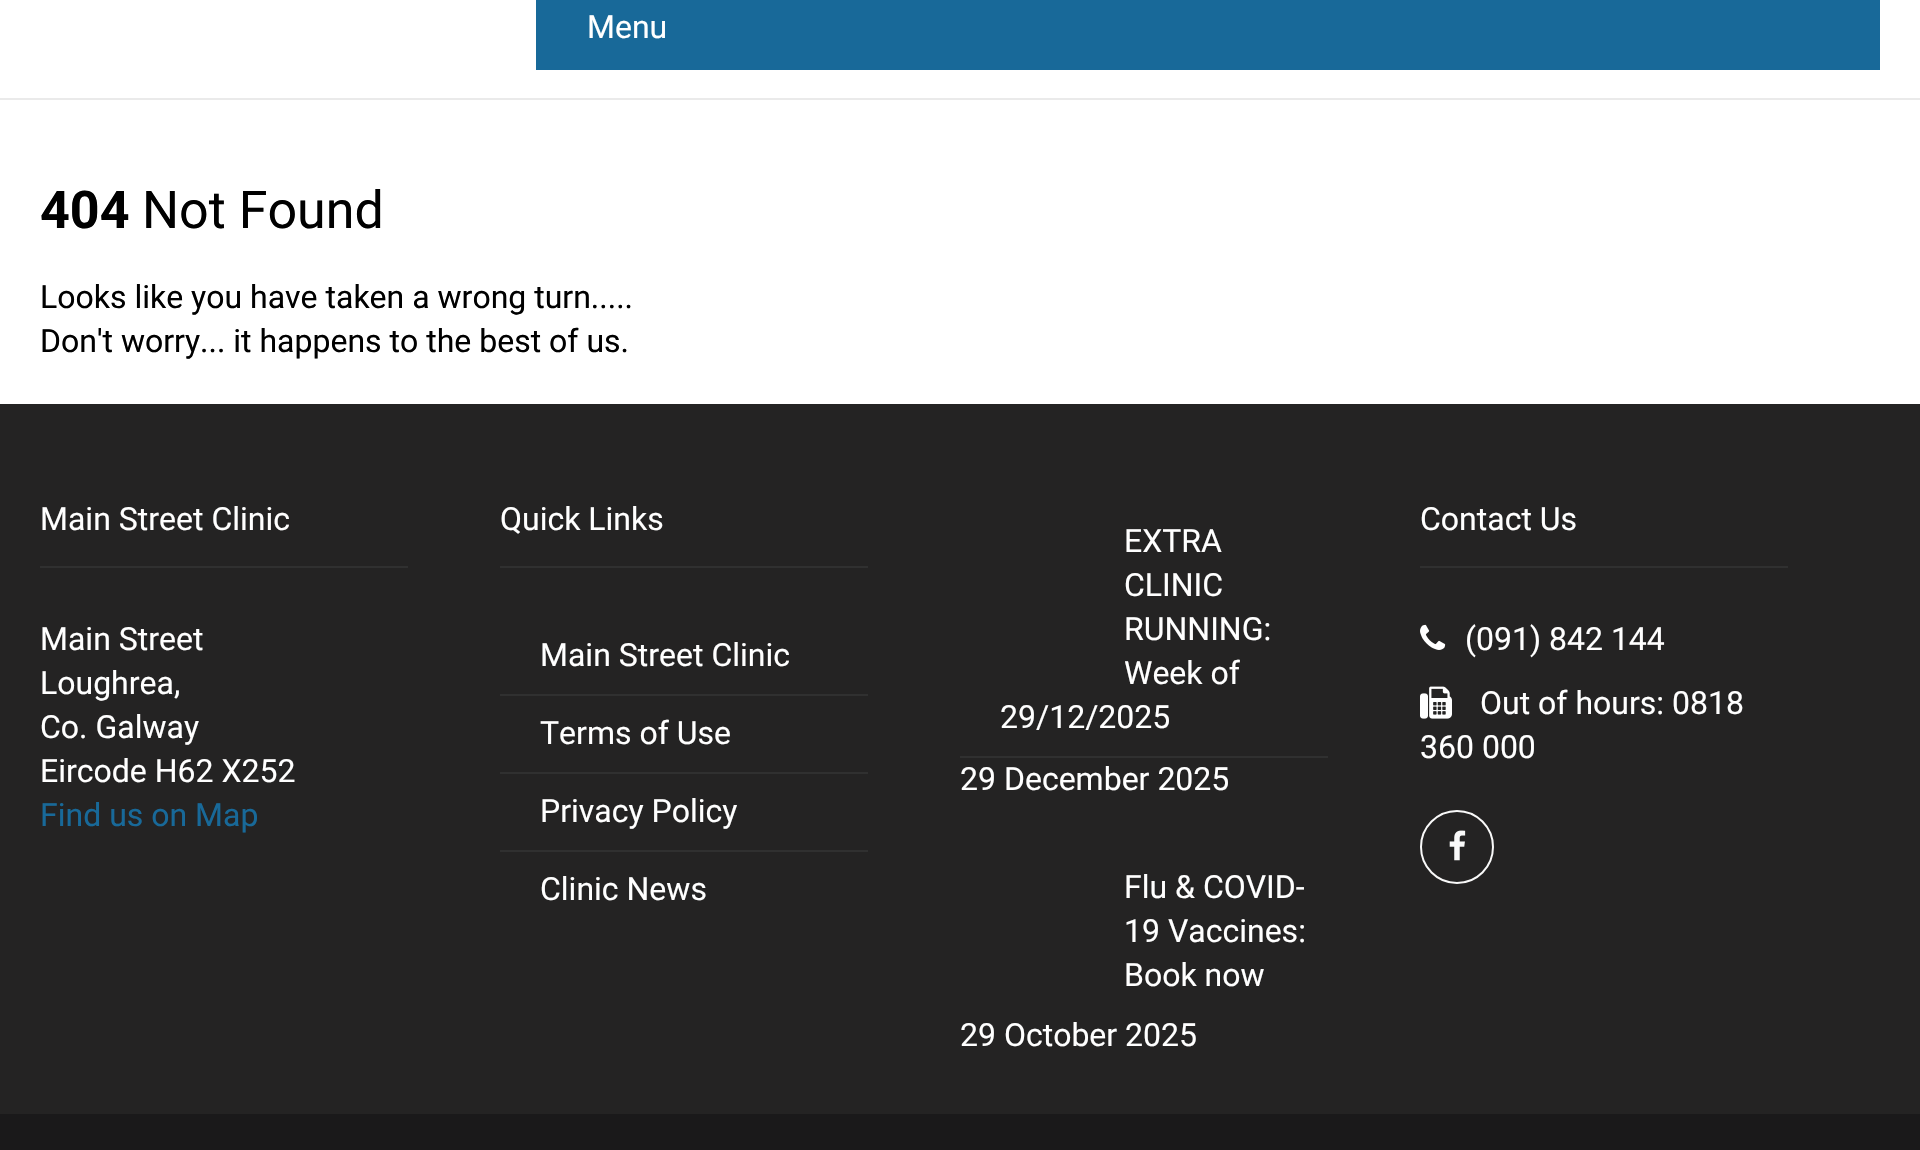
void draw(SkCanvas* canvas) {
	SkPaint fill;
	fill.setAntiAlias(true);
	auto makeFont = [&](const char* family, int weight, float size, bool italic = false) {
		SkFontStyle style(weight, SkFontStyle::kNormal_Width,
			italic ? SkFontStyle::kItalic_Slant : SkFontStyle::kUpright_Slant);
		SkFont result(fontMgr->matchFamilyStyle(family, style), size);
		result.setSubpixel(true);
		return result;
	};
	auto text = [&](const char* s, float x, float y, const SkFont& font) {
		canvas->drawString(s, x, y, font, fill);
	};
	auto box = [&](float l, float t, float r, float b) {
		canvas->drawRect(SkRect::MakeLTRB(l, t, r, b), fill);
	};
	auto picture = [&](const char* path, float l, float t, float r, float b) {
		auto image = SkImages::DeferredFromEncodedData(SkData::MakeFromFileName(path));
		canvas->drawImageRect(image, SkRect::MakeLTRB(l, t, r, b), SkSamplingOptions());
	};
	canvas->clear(0xFFFFFFFF);
	fill.setColor(0xFFEAEAEA);
	box(0, 98, 1920, 100);
	fill.setColor(0xFF186999);
	box(536, 0, 1880, 70);
	fill.setColor(0xFF242323);
	box(0, 404, 1920, 1114);
	fill.setColor(0xFF303030);
	box(40, 566, 408, 568);
	box(500, 566, 868, 568);
	box(500, 694, 868, 696);
	box(500, 772, 868, 774);
	box(500, 850, 868, 852);
	box(960, 756, 1328, 758);
	box(1420, 566, 1788, 568);
	picture("image0.png", 1420, 624, 1446, 650);
	picture("image1.png", 1420, 686, 1452, 719);
	fill.setStyle(SkPaint::kStroke_Style);
	fill.setStrokeWidth(2);
	fill.setColor(0xFFF9F9F9);
	canvas->drawCircle(1457, 847, 36, fill);
	picture("image2.png", 1449, 830, 1466, 861);
	fill.setStyle(SkPaint::kFill_Style);
	fill.setColor(0xFF1A191A);
	box(0, 1114, 1920, 1150);
	auto font1 = makeFont("Roboto", 400, 32);
	fill.setColor(0xFFFFFFFF);
	text("Menu", 587, 38, font1);
	auto font2 = makeFont("Roboto", 700, 52);
	fill.setColor(0xFF000000);
	text("404", 40, 228, font2);
	auto font3 = makeFont("Roboto", 400, 52);
	text("Not Found", 142, 228, font3);
	text("Looks like you have taken a wrong turn.....", 40, 308, font1);
	text("Don't worry... it happens to the best of us.", 40, 352, font1);
	fill.setColor(0xFFFFFFFF);
	text("Main Street Clinic", 40, 530, font1);
	text("Main Street", 40, 650, font1);
	text("Loughrea,", 40, 694, font1);
	text("Co. Galway", 40, 738, font1);
	text("Eircode H62 X252", 40, 782, font1);
	fill.setColor(0xFF186999);
	text("Find us on Map", 40, 826, font1);
	fill.setColor(0xFFFFFFFF);
	text("Quick Links", 500, 530, font1);
	text("Main Street Clinic", 540, 666, font1);
	text("Terms of Use", 540, 744, font1);
	text("Privacy Policy", 540, 822, font1);
	text("Clinic News", 540, 900, font1);
	text("EXTRA", 1124, 552, font1);
	text("CLINIC", 1124, 596, font1);
	text("RUNNING:", 1124, 640, font1);
	text("Week of", 1124, 684, font1);
	text("29/12/2025", 1000, 728, font1);
	text("29 December 2025", 960, 790, font1);
	text("Flu & COVID-", 1124, 898, font1);
	text("19 Vaccines:", 1124, 942, font1);
	text("Book now", 1124, 986, font1);
	text("29 October 2025", 960, 1046, font1);
	text("Contact Us", 1420, 530, font1);
	text("(091) 842 144", 1465, 650, font1);
	text("Out of hours: 0818", 1480, 714, font1);
	text("360 000", 1420, 758, font1);
}
